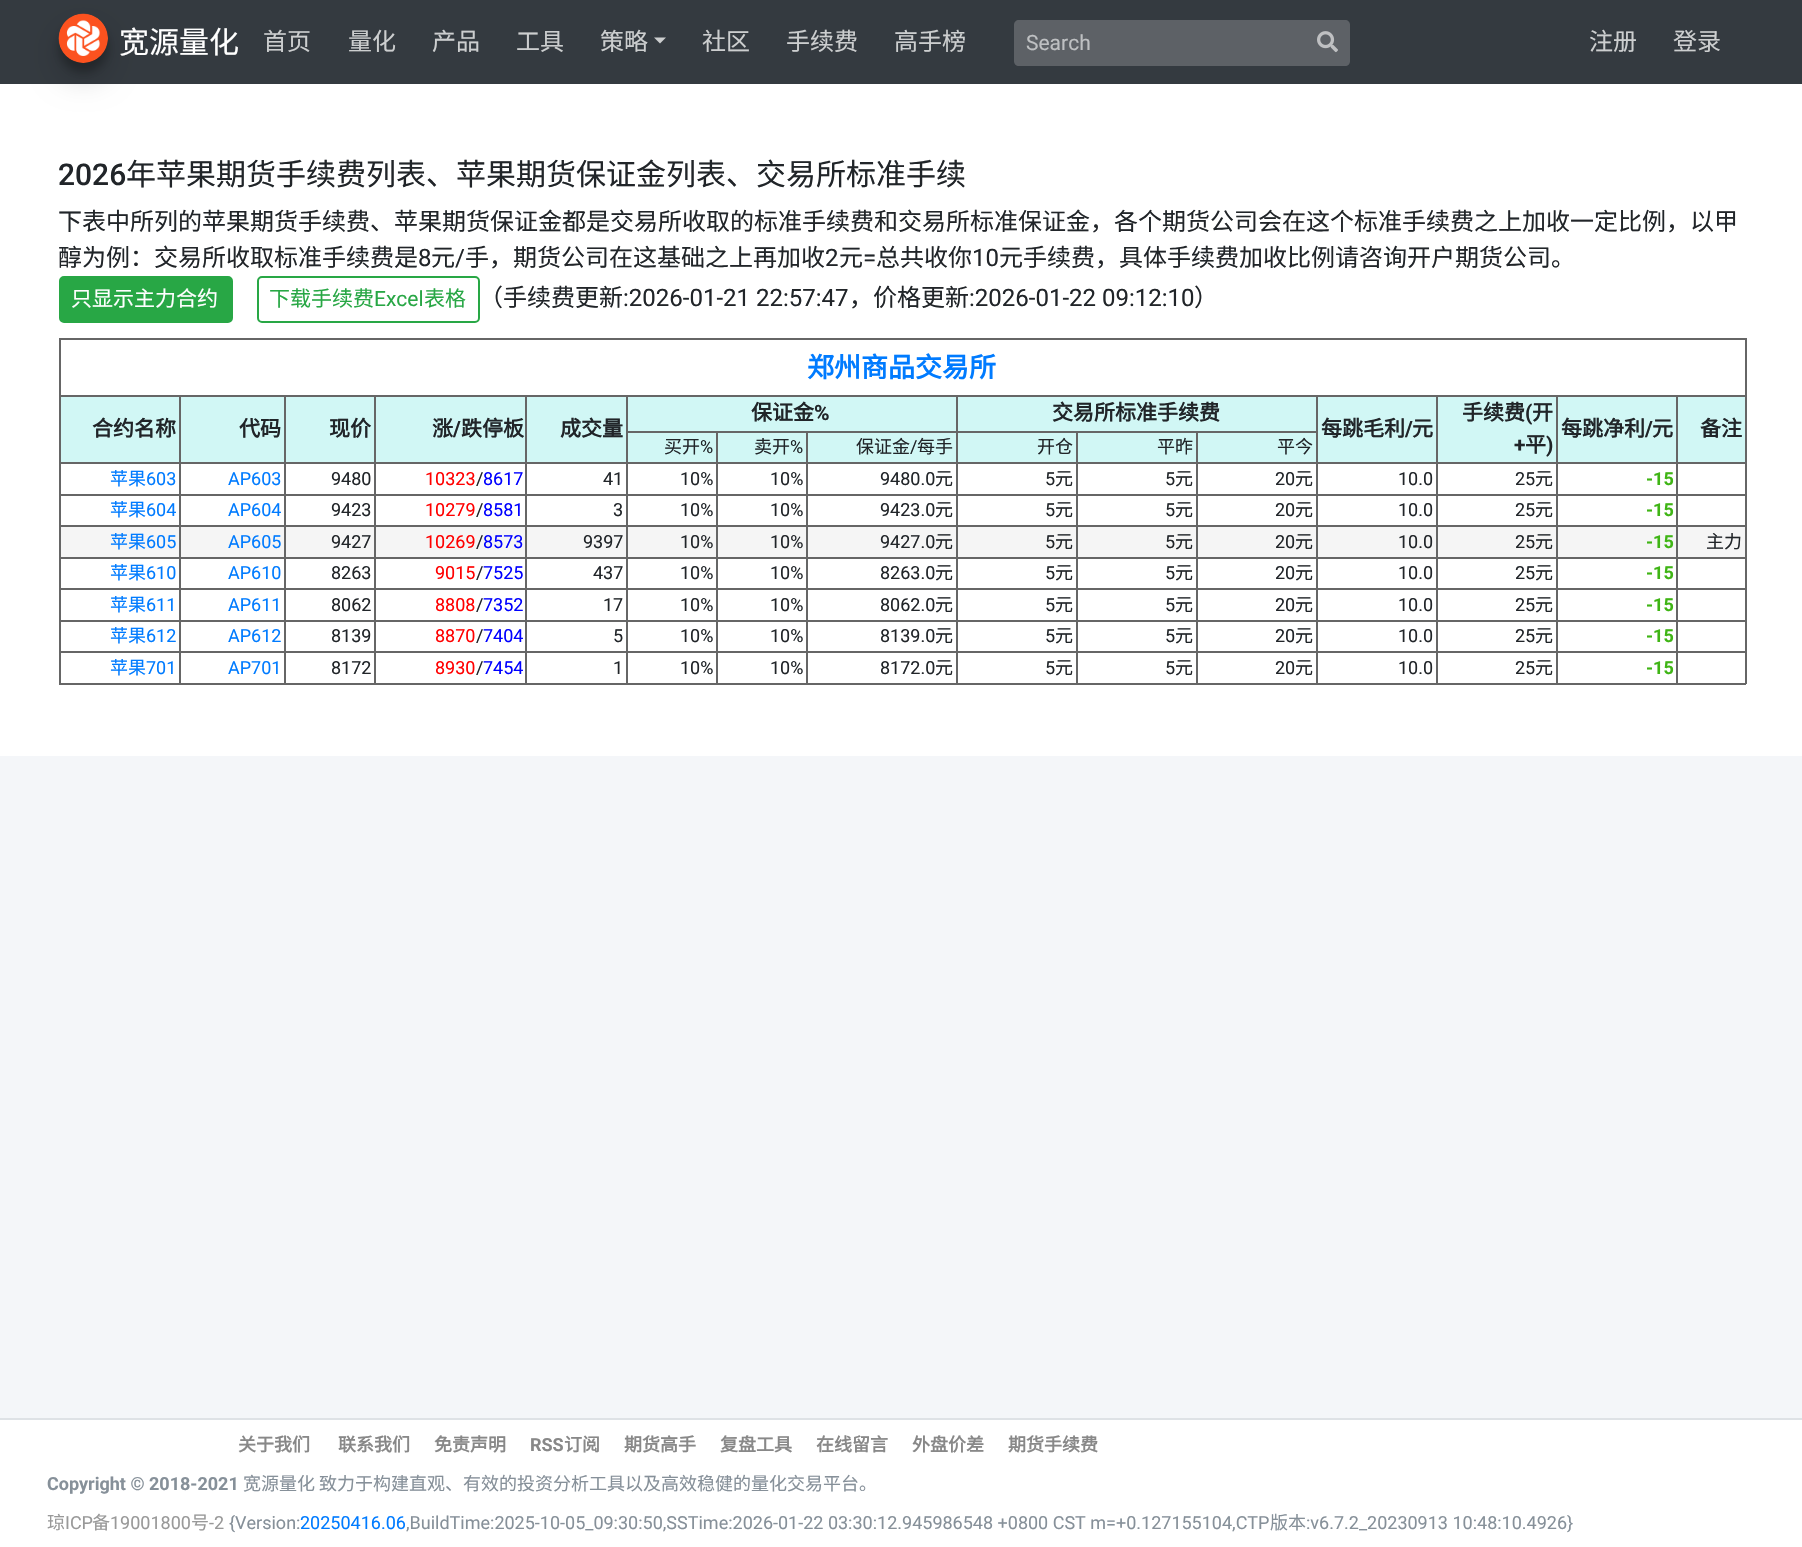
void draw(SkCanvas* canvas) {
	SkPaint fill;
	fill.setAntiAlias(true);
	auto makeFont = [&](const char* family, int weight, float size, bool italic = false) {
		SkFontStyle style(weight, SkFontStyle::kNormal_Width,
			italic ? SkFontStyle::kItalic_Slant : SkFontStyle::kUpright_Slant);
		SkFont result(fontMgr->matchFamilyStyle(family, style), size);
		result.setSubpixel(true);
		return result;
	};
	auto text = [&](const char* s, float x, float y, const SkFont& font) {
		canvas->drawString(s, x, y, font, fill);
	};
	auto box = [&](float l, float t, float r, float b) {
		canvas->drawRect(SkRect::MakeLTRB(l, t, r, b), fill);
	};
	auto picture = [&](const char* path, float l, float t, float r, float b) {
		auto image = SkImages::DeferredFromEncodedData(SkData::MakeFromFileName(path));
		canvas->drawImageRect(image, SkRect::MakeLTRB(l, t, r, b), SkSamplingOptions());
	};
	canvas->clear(0xFFFFFFFF);
	fill.setColor(0xFF343A40);
	box(0, 0, 1802, 84);
	fill.setColor(0x30000000);
	fill.setMaskFilter(SkMaskFilter::MakeBlur(kNormal_SkBlurStyle, 15));
	canvas->drawRoundRect(SkRect::MakeLTRB(59, 29, 108, 78), 24.5f, 24.5f, fill);
	fill.setMaskFilter(nullptr);
	fill.setColor(0x3B000000);
	fill.setMaskFilter(SkMaskFilter::MakeBlur(kNormal_SkBlurStyle, 4.5f));
	canvas->drawRoundRect(SkRect::MakeLTRB(59, 23, 108, 72), 24.5f, 24.5f, fill);
	fill.setMaskFilter(nullptr);
	picture("image0.png", 58, 13, 108, 63);
	fill.setColor(0xFFCCCECF);
	canvas->drawPath(SkPathBuilder().moveTo(654, 37.5f).lineTo(666, 37.5f).lineTo(660, 43.5f).close().detach(), fill);
	fill.setColor(0xFF5D6166);
	canvas->drawPath(SkPathBuilder().moveTo(1019, 20).lineTo(1305, 20).lineTo(1305, 66).lineTo(1019, 66).cubicTo(1016, 66, 1014, 64, 1014, 61).lineTo(1014, 25).cubicTo(1014, 22, 1016, 20, 1019, 20).close().detach(), fill);
	canvas->drawPath(SkPathBuilder().moveTo(1305, 20).lineTo(1345, 20).cubicTo(1348, 20, 1350, 22, 1350, 25).lineTo(1350, 61).cubicTo(1350, 64, 1348, 66, 1345, 66).lineTo(1305, 66).close().detach(), fill);
	picture("image1.png", 1317, 31, 1338, 53);
	fill.setColor(0xFFF4F6F9);
	box(0, 756, 1802, 1418);
	fill.setColor(0xFF28A745);
	canvas->drawRoundRect(SkRect::MakeLTRB(60, 277, 232, 322), 4, 4, fill);
	fill.setStyle(SkPaint::kStroke_Style);
	fill.setStrokeWidth(2);
	canvas->drawRoundRect(SkRect::MakeLTRB(60, 277, 232, 322), 4, 4, fill);
	canvas->drawRoundRect(SkRect::MakeLTRB(258, 277, 479, 322), 4, 4, fill);
	fill.setStyle(SkPaint::kFill_Style);
	fill.setColor(0xFF666666);
	box(59, 338, 1746, 340);
	box(1745, 338, 1747, 684);
	box(59, 683, 1746, 685);
	box(59, 338, 61, 684);
	fill.setColor(0xFFD1F7F5);
	box(61, 397, 1745, 462);
	fill.setColor(0xFF666666);
	box(1676, 395, 1746, 397);
	box(1676, 462, 1746, 464);
	box(1676, 494, 1746, 496);
	box(1676, 525, 1746, 527);
	fill.setColor(0xFFF5F5F5);
	box(61, 527, 1745, 557);
	fill.setColor(0xFF666666);
	box(1676, 557, 1746, 559);
	box(1676, 588, 1746, 590);
	box(1676, 620, 1746, 622);
	box(1676, 651, 1746, 653);
	box(1676, 651, 1678, 684);
	box(1556, 651, 1677, 653);
	box(1676, 620, 1678, 653);
	box(1556, 620, 1677, 622);
	box(1676, 588, 1678, 621);
	box(1556, 588, 1677, 590);
	box(1676, 557, 1678, 590);
	box(1556, 557, 1677, 559);
	box(1676, 525, 1678, 558);
	box(1556, 525, 1677, 527);
	box(1676, 494, 1678, 527);
	box(1556, 494, 1677, 496);
	box(1676, 462, 1678, 495);
	box(1556, 462, 1677, 464);
	box(1676, 395, 1678, 464);
	box(1556, 395, 1677, 397);
	box(1556, 651, 1558, 684);
	box(1436, 651, 1557, 653);
	box(1556, 620, 1558, 653);
	box(1436, 620, 1557, 622);
	box(1556, 588, 1558, 621);
	box(1436, 588, 1557, 590);
	box(1556, 557, 1558, 590);
	box(1436, 557, 1557, 559);
	box(1556, 525, 1558, 558);
	box(1436, 525, 1557, 527);
	box(1556, 494, 1558, 527);
	box(1436, 494, 1557, 496);
	box(1556, 462, 1558, 495);
	box(1436, 462, 1557, 464);
	box(1556, 395, 1558, 464);
	box(1436, 395, 1557, 397);
	box(1436, 651, 1438, 684);
	box(1316, 651, 1437, 653);
	box(1436, 620, 1438, 653);
	box(1316, 620, 1437, 622);
	box(1436, 588, 1438, 621);
	box(1316, 588, 1437, 590);
	box(1436, 557, 1438, 590);
	box(1316, 557, 1437, 559);
	box(1436, 525, 1438, 558);
	box(1316, 525, 1437, 527);
	box(1436, 494, 1438, 527);
	box(1316, 494, 1437, 496);
	box(1436, 462, 1438, 495);
	box(1316, 462, 1437, 464);
	box(1436, 395, 1438, 464);
	box(1316, 395, 1437, 397);
	box(1196, 431, 1317, 433);
	box(1316, 651, 1318, 684);
	box(1196, 651, 1317, 653);
	box(1316, 620, 1318, 653);
	box(1196, 620, 1317, 622);
	box(1316, 588, 1318, 621);
	box(1196, 588, 1317, 590);
	box(1316, 557, 1318, 590);
	box(1196, 557, 1317, 559);
	box(1316, 525, 1318, 558);
	box(1196, 525, 1317, 527);
	box(1316, 494, 1318, 527);
	box(1196, 494, 1317, 496);
	box(1316, 462, 1318, 495);
	box(1196, 462, 1317, 464);
	box(1316, 395, 1318, 464);
	box(956, 395, 1317, 397);
	box(1196, 651, 1198, 684);
	box(1076, 651, 1197, 653);
	box(1196, 620, 1198, 653);
	box(1076, 620, 1197, 622);
	box(1196, 588, 1198, 621);
	box(1076, 588, 1197, 590);
	box(1196, 557, 1198, 590);
	box(1076, 557, 1197, 559);
	box(1196, 525, 1198, 558);
	box(1076, 525, 1197, 527);
	box(1196, 494, 1198, 527);
	box(1076, 494, 1197, 496);
	box(1196, 462, 1198, 495);
	box(1076, 462, 1197, 464);
	box(1196, 431, 1198, 464);
	box(1076, 431, 1197, 433);
	box(1076, 651, 1078, 684);
	box(956, 651, 1077, 653);
	box(1076, 620, 1078, 653);
	box(956, 620, 1077, 622);
	box(1076, 588, 1078, 621);
	box(956, 588, 1077, 590);
	box(1076, 557, 1078, 590);
	box(956, 557, 1077, 559);
	box(1076, 525, 1078, 558);
	box(956, 525, 1077, 527);
	box(1076, 494, 1078, 527);
	box(956, 494, 1077, 496);
	box(1076, 462, 1078, 495);
	box(956, 462, 1077, 464);
	box(1076, 431, 1078, 464);
	box(956, 431, 1077, 433);
	box(956, 651, 958, 684);
	box(806, 651, 957, 653);
	box(956, 620, 958, 653);
	box(806, 620, 957, 622);
	box(956, 588, 958, 621);
	box(806, 588, 957, 590);
	box(956, 557, 958, 590);
	box(806, 557, 957, 559);
	box(956, 525, 958, 558);
	box(806, 525, 957, 527);
	box(956, 494, 958, 527);
	box(806, 494, 957, 496);
	box(956, 462, 958, 495);
	box(806, 462, 957, 464);
	box(956, 431, 958, 464);
	box(806, 431, 957, 433);
	box(956, 395, 958, 432);
	box(626, 395, 957, 397);
	box(806, 651, 808, 684);
	box(716, 651, 807, 653);
	box(806, 620, 808, 653);
	box(716, 620, 807, 622);
	box(806, 588, 808, 621);
	box(716, 588, 807, 590);
	box(806, 557, 808, 590);
	box(716, 557, 807, 559);
	box(806, 525, 808, 558);
	box(716, 525, 807, 527);
	box(806, 494, 808, 527);
	box(716, 494, 807, 496);
	box(806, 462, 808, 495);
	box(716, 462, 807, 464);
	box(806, 431, 808, 464);
	box(716, 431, 807, 433);
	box(716, 651, 718, 684);
	box(626, 651, 717, 653);
	box(716, 620, 718, 653);
	box(626, 620, 717, 622);
	box(716, 588, 718, 621);
	box(626, 588, 717, 590);
	box(716, 557, 718, 590);
	box(626, 557, 717, 559);
	box(716, 525, 718, 558);
	box(626, 525, 717, 527);
	box(716, 494, 718, 527);
	box(626, 494, 717, 496);
	box(716, 462, 718, 495);
	box(626, 462, 717, 464);
	box(716, 431, 718, 464);
	box(626, 431, 717, 433);
	box(626, 651, 628, 684);
	box(525, 651, 627, 653);
	box(626, 620, 628, 653);
	box(525, 620, 627, 622);
	box(626, 588, 628, 621);
	box(525, 588, 627, 590);
	box(626, 557, 628, 590);
	box(525, 557, 627, 559);
	box(626, 525, 628, 558);
	box(525, 525, 627, 527);
	box(626, 494, 628, 527);
	box(525, 494, 627, 496);
	box(626, 462, 628, 495);
	box(525, 462, 627, 464);
	box(626, 431, 628, 464);
	box(626, 395, 628, 432);
	box(525, 395, 627, 397);
	box(525, 651, 527, 684);
	box(374, 651, 527, 653);
	box(525, 620, 527, 653);
	box(374, 620, 527, 622);
	box(525, 588, 527, 621);
	box(374, 588, 527, 590);
	box(525, 557, 527, 590);
	box(374, 557, 527, 559);
	box(525, 525, 527, 558);
	box(374, 525, 527, 527);
	box(525, 494, 527, 527);
	box(374, 494, 527, 496);
	box(525, 462, 527, 495);
	box(374, 462, 527, 464);
	box(525, 395, 527, 464);
	box(374, 395, 527, 397);
	box(374, 651, 376, 684);
	box(284, 651, 375, 653);
	box(374, 620, 376, 653);
	box(284, 620, 375, 622);
	box(374, 588, 376, 621);
	box(284, 588, 375, 590);
	box(374, 557, 376, 590);
	box(284, 557, 375, 559);
	box(374, 525, 376, 558);
	box(284, 525, 375, 527);
	box(374, 494, 376, 527);
	box(284, 494, 375, 496);
	box(374, 462, 376, 495);
	box(284, 462, 375, 464);
	box(374, 395, 376, 464);
	box(284, 395, 375, 397);
	box(284, 651, 286, 684);
	box(179, 651, 285, 653);
	box(284, 620, 286, 653);
	box(179, 620, 285, 622);
	box(284, 588, 286, 621);
	box(179, 588, 285, 590);
	box(284, 557, 286, 590);
	box(179, 557, 285, 559);
	box(284, 525, 286, 558);
	box(179, 525, 285, 527);
	box(284, 494, 286, 527);
	box(179, 494, 285, 496);
	box(284, 462, 286, 495);
	box(179, 462, 285, 464);
	box(284, 395, 286, 464);
	box(179, 395, 285, 397);
	box(179, 651, 181, 684);
	box(59, 651, 180, 653);
	box(179, 620, 181, 653);
	box(59, 620, 180, 622);
	box(179, 588, 181, 621);
	box(59, 588, 180, 590);
	box(179, 557, 181, 590);
	box(59, 557, 180, 559);
	box(179, 525, 181, 558);
	box(59, 525, 180, 527);
	box(179, 494, 181, 527);
	box(59, 494, 180, 496);
	box(179, 462, 181, 495);
	box(59, 462, 180, 464);
	box(179, 395, 181, 464);
	box(59, 395, 180, 397);
	fill.setColor(0xFFDEE2E6);
	box(0, 1418, 1802, 1420);
	auto font1 = makeFont("Noto Sans CJK SC", 400, 30);
	fill.setColor(0xFFFFFFFF);
	text("宽源量化", 119, 53, font1);
	auto font2 = makeFont("Noto Sans CJK SC", 400, 24);
	fill.setColor(0xFFCCCECF);
	text("首页", 263, 50, font2);
	text("量化", 348, 50, font2);
	text("产品", 432, 50, font2);
	text("工具", 516, 50, font2);
	text("策略", 600, 50, font2);
	text("社区", 702, 50, font2);
	text("手续费", 786, 50, font2);
	text("高手榜", 894, 50, font2);
	auto font3 = makeFont("Roboto", 400, 21);
	fill.setColor(0xFFBEC0C2);
	text("Search", 1026, 50, font3);
	fill.setColor(0xFFCCCECF);
	text("注册", 1589, 50, font2);
	text("登录", 1673, 50, font2);
	auto font4 = makeFont("Roboto", 500, 30);
	fill.setColor(0xFF212529);
	text("2026", 58, 185, font4);
	text("年苹果期货手续费列表、苹果期货保证金列表、交易所标准手续", 126, 185, font1);
	text("下表中所列的苹果期货手续费、苹果期货保证金都是交易所收取的标准手续费和交易所标准保证金，各个期货公司会在这个标准手续费之上加收一定比例，以甲", 58, 230, font2);
	text("醇为例：交易所收取标准手续费是", 58, 266, font2);
	auto font5 = makeFont("Roboto", 400, 24);
	text("8", 418, 266, font5);
	text("元", 431, 266, font2);
	text("/", 455, 266, font5);
	text("手，期货公司在这基础之上再加收", 465, 266, font2);
	text("2", 825, 266, font5);
	text("元", 839, 266, font2);
	text("=", 863, 266, font5);
	text("总共收你", 876, 266, font2);
	text("10", 972, 266, font5);
	text("元手续费，具体手续费加收比例请咨询开户期货公司。", 999, 266, font2);
	auto font6 = makeFont("Noto Sans CJK SC", 400, 21);
	fill.setColor(0xFFFFFFFF);
	text("只显示主力合约", 71, 306, font6);
	fill.setColor(0xFF28A745);
	text("下载手续费", 269, 306, font6);
	text("Excel", 374, 306, font3);
	text("表格", 424, 306, font6);
	fill.setColor(0xFF212529);
	text("（手续费更新", 479, 306, font2);
	text(":2026-01-21 22:57:47", 623, 306, font5);
	text("，价格更新", 849, 306, font2);
	text(":2026-01-22 09:12:10", 969, 306, font5);
	text("）", 1194, 306, font2);
	auto font7 = makeFont("Noto Sans CJK SC", 700, 27);
	fill.setColor(0xFF007BFF);
	text("郑州商品交易所", 807, 377, font7);
	auto font8 = makeFont("Noto Sans CJK SC", 700, 21);
	fill.setColor(0xFF212529);
	text("合约名称", 92, 436, font8);
	text("代码", 239, 436, font8);
	text("现价", 329, 436, font8);
	text("涨", 432, 436, font8);
	auto font9 = makeFont("Roboto", 700, 21);
	text("/", 453, 436, font9);
	text("跌停板", 461, 436, font8);
	text("成交量", 560, 436, font8);
	text("保证金", 751, 420, font8);
	text("%", 814, 420, font9);
	text("交易所标准手续费", 1052, 420, font8);
	text("每跳毛利", 1321, 436, font8);
	text("/", 1405, 436, font9);
	text("元", 1412, 436, font8);
	text("手续费", 1462, 420, font8);
	text("(", 1525, 420, font9);
	text("开", 1532, 420, font8);
	text("+", 1514, 452, font9);
	text("平", 1525, 452, font8);
	text(")", 1546, 452, font9);
	text("每跳净利", 1561, 436, font8);
	text("/", 1645, 436, font9);
	text("元", 1652, 436, font8);
	text("备注", 1700, 436, font8);
	auto font10 = makeFont("Noto Sans CJK SC", 400, 18);
	text("买开", 664, 453, font10);
	auto font11 = makeFont("Roboto", 400, 18);
	text("%", 700, 453, font11);
	text("卖开", 754, 453, font10);
	text("%", 790, 453, font11);
	text("保证金", 856, 453, font10);
	text("/", 910, 453, font11);
	text("每手", 917, 453, font10);
	text("开仓", 1037, 453, font10);
	text("平昨", 1157, 453, font10);
	text("平今", 1277, 453, font10);
	fill.setColor(0xFF007BFF);
	text("苹果", 110, 485, font10);
	text("603", 146, 485, font11);
	text("AP603", 228, 485, font11);
	fill.setColor(0xFF212529);
	text("9480", 331, 485, font11);
	fill.setColor(0xFFFF0000);
	text("10323", 425, 485, font11);
	fill.setColor(0xFF212529);
	text("/", 476, 485, font11);
	fill.setColor(0xFF0000FF);
	text("8617", 483, 485, font11);
	fill.setColor(0xFF212529);
	text("41", 603, 485, font11);
	text("10%", 680, 485, font11);
	text("10%", 770, 485, font11);
	text("9480.0", 880, 485, font11);
	text("元", 935, 485, font10);
	text("5", 1045, 485, font11);
	text("元", 1055, 485, font10);
	text("5", 1165, 485, font11);
	text("元", 1175, 485, font10);
	text("20", 1275, 485, font11);
	text("元", 1295, 485, font10);
	text("10.0", 1398, 485, font11);
	text("25", 1515, 485, font11);
	text("元", 1535, 485, font10);
	auto font12 = makeFont("Roboto", 700, 18);
	fill.setColor(0xFF3FB515);
	text("-15", 1646, 485, font12);
	fill.setColor(0xFF007BFF);
	text("苹果", 110, 516, font10);
	text("604", 146, 516, font11);
	text("AP604", 228, 516, font11);
	fill.setColor(0xFF212529);
	text("9423", 331, 516, font11);
	fill.setColor(0xFFFF0000);
	text("10279", 425, 516, font11);
	fill.setColor(0xFF212529);
	text("/", 476, 516, font11);
	fill.setColor(0xFF0000FF);
	text("8581", 483, 516, font11);
	fill.setColor(0xFF212529);
	text("3", 613, 516, font11);
	text("10%", 680, 516, font11);
	text("10%", 770, 516, font11);
	text("9423.0", 880, 516, font11);
	text("元", 935, 516, font10);
	text("5", 1045, 516, font11);
	text("元", 1055, 516, font10);
	text("5", 1165, 516, font11);
	text("元", 1175, 516, font10);
	text("20", 1275, 516, font11);
	text("元", 1295, 516, font10);
	text("10.0", 1398, 516, font11);
	text("25", 1515, 516, font11);
	text("元", 1535, 516, font10);
	fill.setColor(0xFF3FB515);
	text("-15", 1646, 516, font12);
	fill.setColor(0xFF007BFF);
	text("苹果", 110, 548, font10);
	text("605", 146, 548, font11);
	text("AP605", 228, 548, font11);
	fill.setColor(0xFF212529);
	text("9427", 331, 548, font11);
	fill.setColor(0xFFFF0000);
	text("10269", 425, 548, font11);
	fill.setColor(0xFF212529);
	text("/", 476, 548, font11);
	fill.setColor(0xFF0000FF);
	text("8573", 483, 548, font11);
	fill.setColor(0xFF212529);
	text("9397", 583, 548, font11);
	text("10%", 680, 548, font11);
	text("10%", 770, 548, font11);
	text("9427.0", 880, 548, font11);
	text("元", 935, 548, font10);
	text("5", 1045, 548, font11);
	text("元", 1055, 548, font10);
	text("5", 1165, 548, font11);
	text("元", 1175, 548, font10);
	text("20", 1275, 548, font11);
	text("元", 1295, 548, font10);
	text("10.0", 1398, 548, font11);
	text("25", 1515, 548, font11);
	text("元", 1535, 548, font10);
	fill.setColor(0xFF3FB515);
	text("-15", 1646, 548, font12);
	fill.setColor(0xFF212529);
	text("主力", 1706, 548, font10);
	fill.setColor(0xFF007BFF);
	text("苹果", 110, 579, font10);
	text("610", 146, 579, font11);
	text("AP610", 228, 579, font11);
	fill.setColor(0xFF212529);
	text("8263", 331, 579, font11);
	fill.setColor(0xFFFF0000);
	text("9015", 435, 579, font11);
	fill.setColor(0xFF212529);
	text("/", 476, 579, font11);
	fill.setColor(0xFF0000FF);
	text("7525", 483, 579, font11);
	fill.setColor(0xFF212529);
	text("437", 593, 579, font11);
	text("10%", 680, 579, font11);
	text("10%", 770, 579, font11);
	text("8263.0", 880, 579, font11);
	text("元", 935, 579, font10);
	text("5", 1045, 579, font11);
	text("元", 1055, 579, font10);
	text("5", 1165, 579, font11);
	text("元", 1175, 579, font10);
	text("20", 1275, 579, font11);
	text("元", 1295, 579, font10);
	text("10.0", 1398, 579, font11);
	text("25", 1515, 579, font11);
	text("元", 1535, 579, font10);
	fill.setColor(0xFF3FB515);
	text("-15", 1646, 579, font12);
	fill.setColor(0xFF007BFF);
	text("苹果", 110, 611, font10);
	text("611", 146, 611, font11);
	text("AP611", 228, 611, font11);
	fill.setColor(0xFF212529);
	text("8062", 331, 611, font11);
	fill.setColor(0xFFFF0000);
	text("8808", 435, 611, font11);
	fill.setColor(0xFF212529);
	text("/", 476, 611, font11);
	fill.setColor(0xFF0000FF);
	text("7352", 483, 611, font11);
	fill.setColor(0xFF212529);
	text("17", 603, 611, font11);
	text("10%", 680, 611, font11);
	text("10%", 770, 611, font11);
	text("8062.0", 880, 611, font11);
	text("元", 935, 611, font10);
	text("5", 1045, 611, font11);
	text("元", 1055, 611, font10);
	text("5", 1165, 611, font11);
	text("元", 1175, 611, font10);
	text("20", 1275, 611, font11);
	text("元", 1295, 611, font10);
	text("10.0", 1398, 611, font11);
	text("25", 1515, 611, font11);
	text("元", 1535, 611, font10);
	fill.setColor(0xFF3FB515);
	text("-15", 1646, 611, font12);
	fill.setColor(0xFF007BFF);
	text("苹果", 110, 642, font10);
	text("612", 146, 642, font11);
	text("AP612", 228, 642, font11);
	fill.setColor(0xFF212529);
	text("8139", 331, 642, font11);
	fill.setColor(0xFFFF0000);
	text("8870", 435, 642, font11);
	fill.setColor(0xFF212529);
	text("/", 476, 642, font11);
	fill.setColor(0xFF0000FF);
	text("7404", 483, 642, font11);
	fill.setColor(0xFF212529);
	text("5", 613, 642, font11);
	text("10%", 680, 642, font11);
	text("10%", 770, 642, font11);
	text("8139.0", 880, 642, font11);
	text("元", 935, 642, font10);
	text("5", 1045, 642, font11);
	text("元", 1055, 642, font10);
	text("5", 1165, 642, font11);
	text("元", 1175, 642, font10);
	text("20", 1275, 642, font11);
	text("元", 1295, 642, font10);
	text("10.0", 1398, 642, font11);
	text("25", 1515, 642, font11);
	text("元", 1535, 642, font10);
	fill.setColor(0xFF3FB515);
	text("-15", 1646, 642, font12);
	fill.setColor(0xFF007BFF);
	text("苹果", 110, 674, font10);
	text("701", 146, 674, font11);
	text("AP701", 228, 674, font11);
	fill.setColor(0xFF212529);
	text("8172", 331, 674, font11);
	fill.setColor(0xFFFF0000);
	text("8930", 435, 674, font11);
	fill.setColor(0xFF212529);
	text("/", 476, 674, font11);
	fill.setColor(0xFF0000FF);
	text("7454", 483, 674, font11);
	fill.setColor(0xFF212529);
	text("1", 613, 674, font11);
	text("10%", 680, 674, font11);
	text("10%", 770, 674, font11);
	text("8172.0", 880, 674, font11);
	text("元", 935, 674, font10);
	text("5", 1045, 674, font11);
	text("元", 1055, 674, font10);
	text("5", 1165, 674, font11);
	text("元", 1175, 674, font10);
	text("20", 1275, 674, font11);
	text("元", 1295, 674, font10);
	text("10.0", 1398, 674, font11);
	text("25", 1515, 674, font11);
	text("元", 1535, 674, font10);
	fill.setColor(0xFF3FB515);
	text("-15", 1646, 674, font12);
	auto font13 = makeFont("Noto Sans CJK SC", 700, 18);
	fill.setColor(0xFF888888);
	text("关于我们", 238, 1451, font13);
	text("联系我们", 338, 1451, font13);
	text("免责声明", 434, 1451, font13);
	text("RSS", 530, 1451, font12);
	text("订阅", 564, 1451, font13);
	text("期货高手", 624, 1451, font13);
	text("复盘工具", 720, 1451, font13);
	text("在线留言", 816, 1451, font13);
	text("外盘价差", 912, 1451, font13);
	text("期货手续费", 1008, 1451, font13);
	fill.setColor(0xFF869099);
	text("Copyright © 2018-2021", 47, 1490, font12);
	text("宽源量化 致力于构建直观、有效的投资分析工具以及高效稳健的量化交易平台。", 243, 1490, font10);
	fill.setColor(0xFF999999);
	text("琼", 47, 1529, font10);
	text("ICP", 65, 1529, font11);
	text("备", 92, 1529, font10);
	text("19001800", 110, 1529, font11);
	text("号", 191, 1529, font10);
	text("-2", 209, 1529, font11);
	fill.setColor(0xFF869099);
	text("{Version:", 229, 1529, font11);
	fill.setColor(0xFF007BFF);
	text("20250416.06", 300, 1529, font11);
	fill.setColor(0xFF869099);
	text(",BuildTime:2025-10-05_09:30:50,SSTime:2026-01-22 03:30:12.945986548 +0800 CST m=+0.127155104,CTP", 406, 1529, font11);
	text("版本", 1270, 1529, font10);
	text(":v6.7.2_20230913 10:48:10.4926}", 1306, 1529, font11);
}
